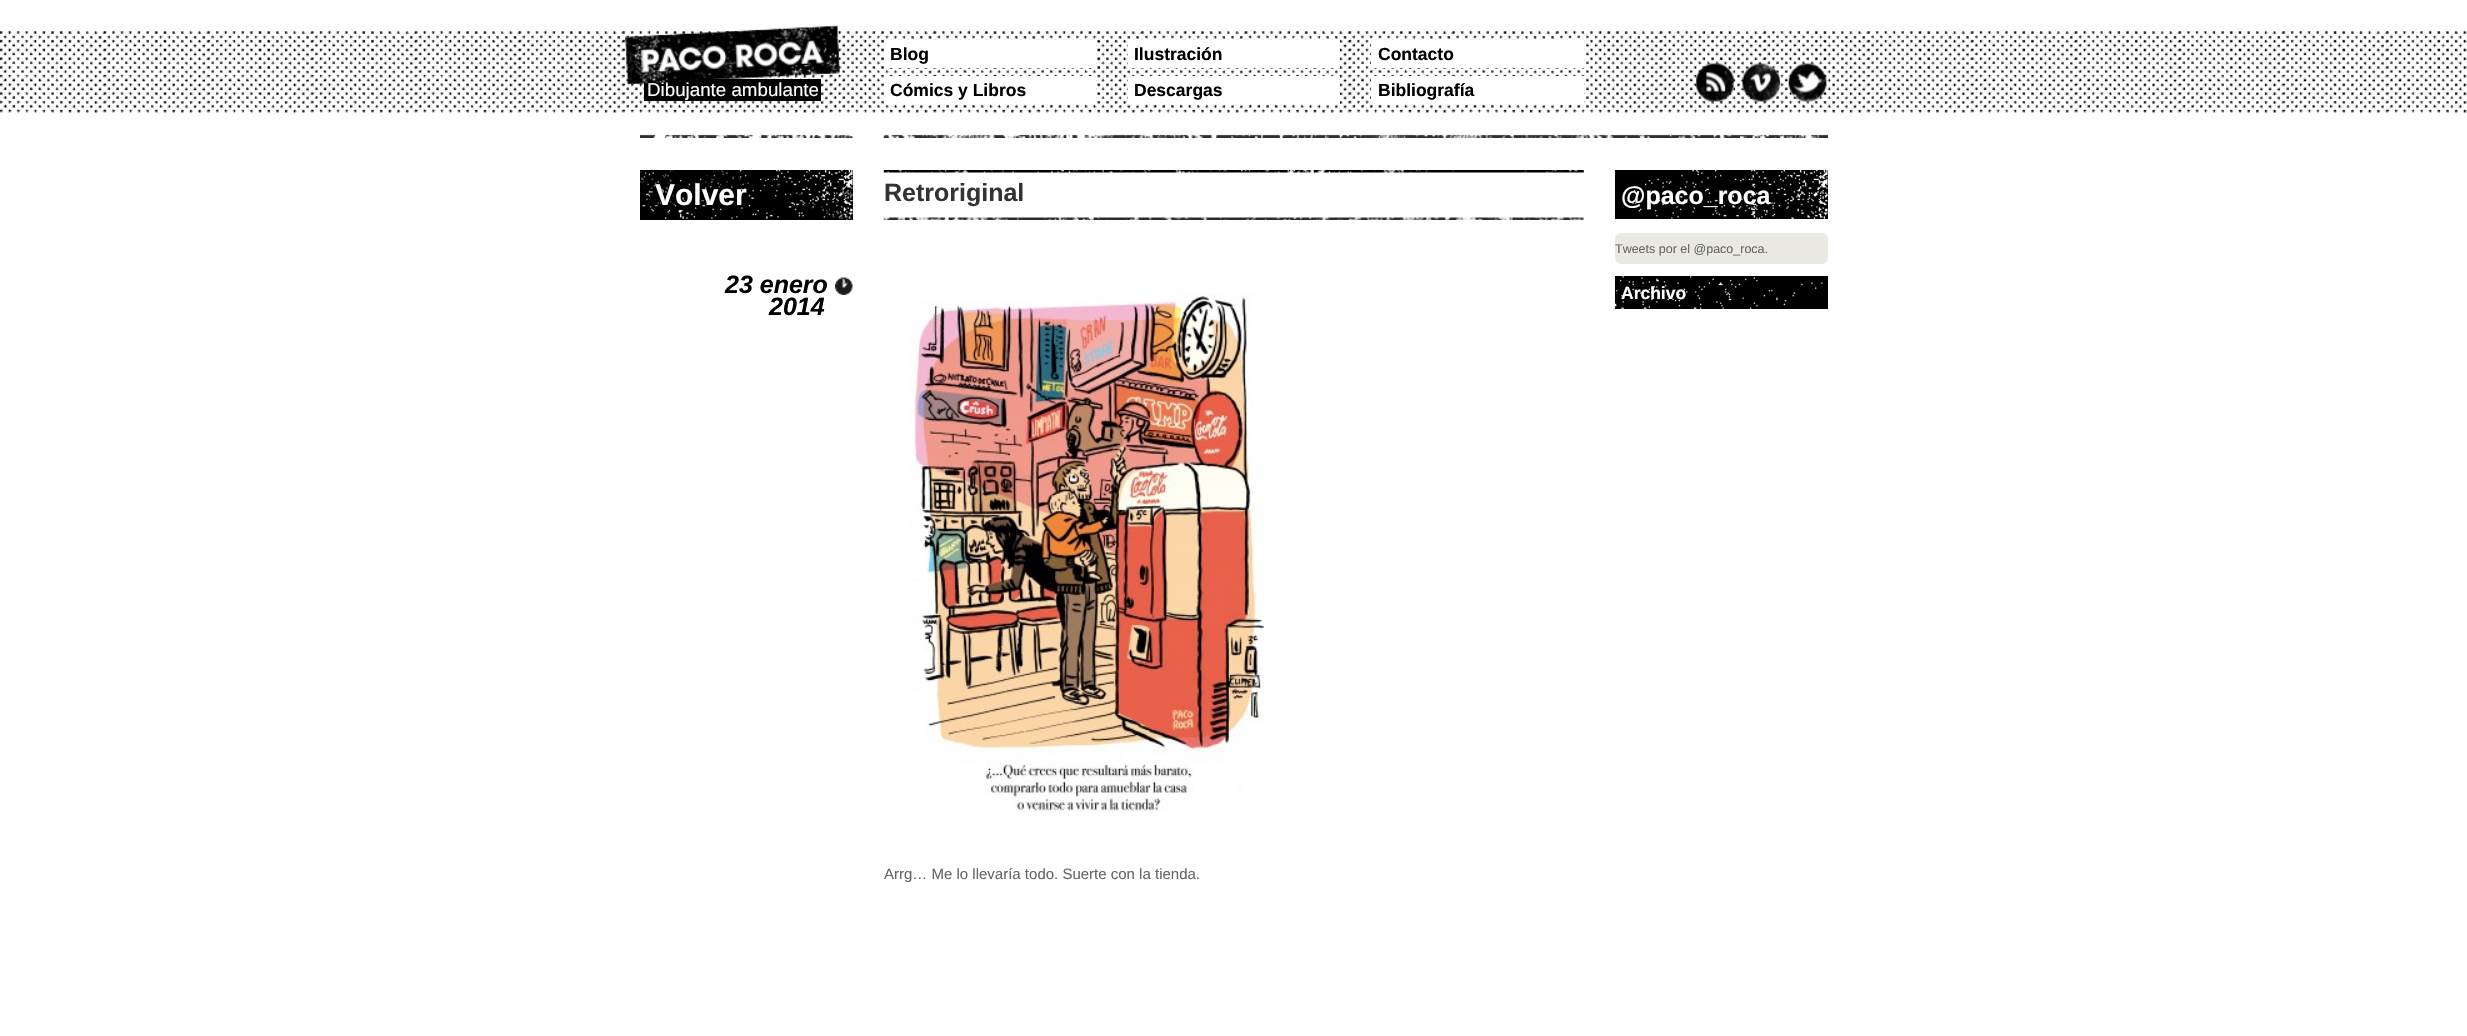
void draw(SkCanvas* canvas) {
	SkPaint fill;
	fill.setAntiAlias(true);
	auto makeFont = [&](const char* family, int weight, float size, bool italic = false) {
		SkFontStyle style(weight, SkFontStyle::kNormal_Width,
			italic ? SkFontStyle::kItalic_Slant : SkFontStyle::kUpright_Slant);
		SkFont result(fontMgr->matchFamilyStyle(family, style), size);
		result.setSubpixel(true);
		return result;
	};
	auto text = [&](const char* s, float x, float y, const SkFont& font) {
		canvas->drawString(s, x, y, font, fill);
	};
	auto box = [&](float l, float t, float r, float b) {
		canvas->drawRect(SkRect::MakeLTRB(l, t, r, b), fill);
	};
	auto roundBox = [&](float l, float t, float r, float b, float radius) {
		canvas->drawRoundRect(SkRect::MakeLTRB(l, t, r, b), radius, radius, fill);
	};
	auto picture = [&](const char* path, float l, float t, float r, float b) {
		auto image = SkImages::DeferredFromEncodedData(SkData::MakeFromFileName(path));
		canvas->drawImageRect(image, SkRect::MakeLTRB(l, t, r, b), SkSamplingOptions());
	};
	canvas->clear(0xFFFFFFFF);
	picture("image0.png", 0, 31, 2467, 113);
	picture("image1.png", 640, 134, 1828, 138);
	fill.setColor(0xFF000000);
	box(644, 79, 821, 101);
	fill.setColor(0xFFFFFFFF);
	box(884, 40, 1096, 68);
	box(884, 76, 1096, 104);
	box(1128, 40, 1340, 68);
	box(1128, 76, 1340, 104);
	box(1371, 40, 1584, 68);
	box(1371, 76, 1584, 104);
	picture("image3.png", 1696, 63, 1734, 102);
	picture("image4.png", 1742, 63, 1781, 102);
	picture("image5.png", 1788, 63, 1827, 102);
	fill.setColor(0xFF000000);
	box(852, 170, 853, 220);
	picture("image6.png", 640, 170, 853, 220);
	picture("image7.png", 835, 277, 853, 295);
	picture("image8.png", 883, 170, 1584, 173);
	picture("image9.png", 883, 217, 1584, 220);
	picture("image10.png", 909, 294, 1264, 812);
	box(1615, 170, 1828, 219);
	picture("image11.png", 1632, 170, 1828, 219);
	fill.setColor(0xFFE9E9E1);
	roundBox(1615, 233, 1828, 264, 6);
	fill.setColor(0xFF000000);
	box(1615, 276, 1828, 309);
	picture("image12.png", 1615, 276, 1823, 309);
	auto font1 = makeFont("Liberation Sans", 400, 18.75f);
	fill.setColor(0xFFFFFFFF);
	text("Dibujante ambulante", 647, 96, font1);
	picture("image2.png", 625, 25, 840, 85);
	auto font2 = makeFont("Liberation Sans", 700, 17.5f);
	fill.setColor(0xFF000000);
	text("Blog", 890, 60, font2);
	text("Cómics y Libros", 890, 96, font2);
	text("Ilustración", 1134, 60, font2);
	text("Descargas", 1134, 96, font2);
	text("Contacto", 1378, 60, font2);
	text("Bibliografía", 1378, 96, font2);
	auto font3 = makeFont("Liberation Sans", 700, 30);
	fill.setColor(0xFFFFFFFF);
	text("Volver", 655, 205, font3);
	auto font4 = makeFont("Liberation Sans", 700, 25, true);
	fill.setColor(0xFF000000);
	text("23 enero", 725, 293, font4);
	text("2014", 769, 315, font4);
	auto font5 = makeFont("Liberation Sans", 700, 25);
	fill.setColor(0xFF333333);
	text("Retroriginal", 884, 201, font5);
	auto font6 = makeFont("Liberation Sans", 400, 15);
	fill.setColor(0xFF666666);
	text("Arrg… Me lo llevaría todo. Suerte con la tienda.", 884, 879, font6);
	fill.setColor(0xFFFFFFFF);
	text("@paco_roca", 1621, 204, font5);
	auto font7 = makeFont("Liberation Sans", 400, 12.5f);
	fill.setColor(0xFF666666);
	text("Tweets por el @paco_roca.", 1615, 253, font7);
	fill.setColor(0xFFFFFFFF);
	text("Archivo", 1621, 299, font2);
}
